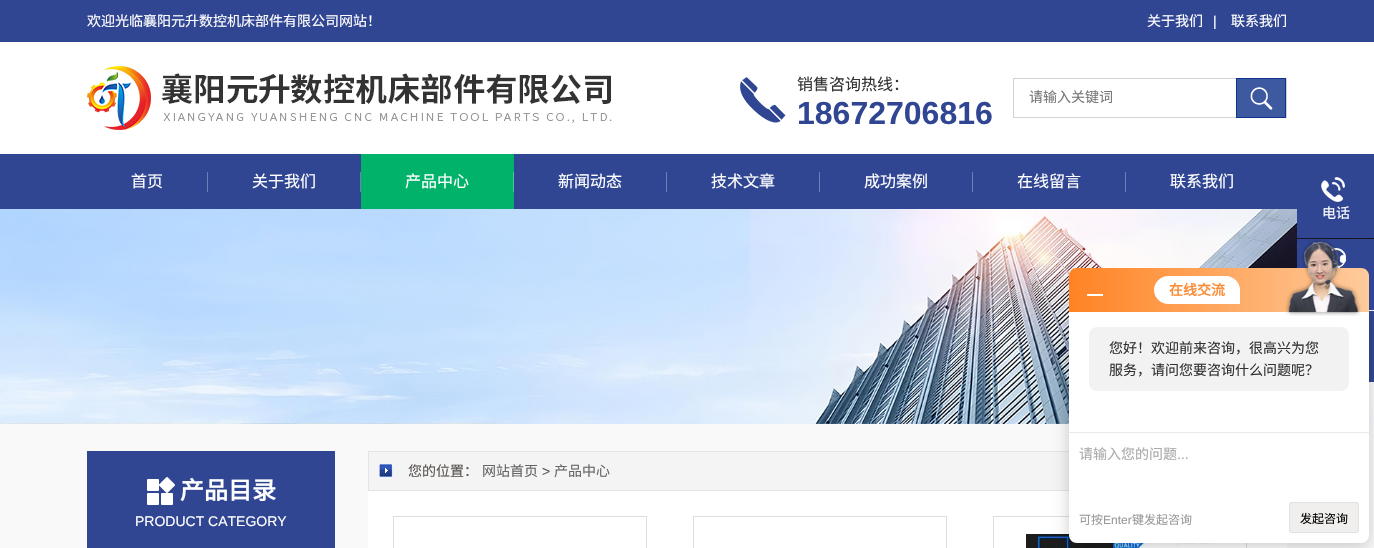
void draw(SkCanvas* canvas) {
	SkPaint fill;
	fill.setAntiAlias(true);
	auto makeFont = [&](const char* family, int weight, float size, bool italic = false) {
		SkFontStyle style(weight, SkFontStyle::kNormal_Width,
			italic ? SkFontStyle::kItalic_Slant : SkFontStyle::kUpright_Slant);
		SkFont result(fontMgr->matchFamilyStyle(family, style), size);
		result.setSubpixel(true);
		return result;
	};
	auto text = [&](const char* s, float x, float y, const SkFont& font) {
		canvas->drawString(s, x, y, font, fill);
	};
	auto box = [&](float l, float t, float r, float b) {
		canvas->drawRect(SkRect::MakeLTRB(l, t, r, b), fill);
	};
	auto roundBox = [&](float l, float t, float r, float b, float radius) {
		canvas->drawRoundRect(SkRect::MakeLTRB(l, t, r, b), radius, radius, fill);
	};
	auto picture = [&](const char* path, float l, float t, float r, float b) {
		auto image = SkImages::DeferredFromEncodedData(SkData::MakeFromFileName(path));
		canvas->drawImageRect(image, SkRect::MakeLTRB(l, t, r, b), SkSamplingOptions());
	};
	canvas->clear(0xFFFFFFFF);
	fill.setColor(0xFF314693);
	box(0, 0, 1374, 42);
	picture("image0.png", 87, 66, 612, 130);
	picture("image1.png", 740, 77, 786, 123);
	fill.setStyle(SkPaint::kStroke_Style);
	fill.setStrokeWidth(1);
	fill.setColor(0xFFD3D3D3);
	canvas->drawRect(SkRect::MakeLTRB(1013.5f, 78.5f, 1286.5f, 117.5f), fill);
	fill.setStyle(SkPaint::kFill_Style);
	fill.setColor(0xFF3D5AA0);
	box(1237, 79, 1285, 117);
	picture("image2.png", 1250, 87, 1273, 110);
	fill.setStyle(SkPaint::kStroke_Style);
	fill.setColor(0xFF0F348F);
	canvas->drawRect(SkRect::MakeLTRB(1236.5f, 78.5f, 1285.5f, 117.5f), fill);
	fill.setStyle(SkPaint::kFill_Style);
	fill.setColor(0xFF314693);
	box(0, 154, 1374, 209);
	fill.setColor(0xFF6F7EB3);
	box(207, 172, 208, 192);
	box(360, 172, 361, 192);
	fill.setColor(0xFF00B26A);
	box(361, 154, 514, 209);
	fill.setColor(0xFF4DC997);
	box(513, 172, 514, 192);
	fill.setColor(0xFF6F7EB3);
	box(666, 172, 667, 192);
	box(819, 172, 820, 192);
	box(972, 172, 973, 192);
	box(1125, 172, 1126, 192);
	picture("image8.png", 0, 209, 1374, 424);
	fill.setColor(0xFF314693);
	box(1297, 209, 1374, 238);
	picture("image3.png", 1321, 177, 1345, 202);
	box(1297, 239, 1374, 310);
	picture("image4.png", 1331, 248, 1346, 268);
	box(1369, 311, 1374, 382);
	fill.setColor(0xFFF9F9F9);
	box(0, 424, 1374, 548);
	fill.setColor(0xFFFFFFFF);
	box(368, 491, 1287, 548);
	fill.setColor(0xFFF4F4F4);
	box(369, 452, 1069, 490);
	fill.setStyle(SkPaint::kStroke_Style);
	fill.setColor(0xFFE4E4E4);
	canvas->drawRect(SkRect::MakeLTRB(368.5f, 451.5f, 1286.5f, 490.5f), fill);
	picture("image5.png", 379, 464, 393, 477);
	fill.setColor(0xFFDEDEDE);
	canvas->drawRect(SkRect::MakeLTRB(393.5f, 516.5f, 646.5f, 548.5f), fill);
	canvas->drawRect(SkRect::MakeLTRB(693.5f, 516.5f, 946.5f, 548.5f), fill);
	canvas->drawRect(SkRect::MakeLTRB(993.5f, 516.5f, 1246.5f, 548.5f), fill);
	picture("image6.png", 1026, 534, 1213, 548);
	fill.setStyle(SkPaint::kFill_Style);
	fill.setColor(0xFF314693);
	box(87, 451, 335, 548);
	picture("image7.png", 147, 477, 175, 505);
	fill.setColor(0x33000000);
	fill.setMaskFilter(SkMaskFilter::MakeBlur(kNormal_SkBlurStyle, 8));
	canvas->drawRoundRect(SkRect::MakeLTRB(1069, 316, 1369, 547), 8, 8, fill);
	fill.setMaskFilter(nullptr);
	{
		const SkColor colors[] = {0xFFFF8324, 0xFFFECB9C};
		const float stops[] = {0, 1};
		const SkPoint ends[] = {{1069, 290}, {1369, 290}};
		fill.setShader(SkGradientShader::MakeLinear(ends, colors, stops, 2, SkTileMode::kClamp));
		fill.setAlpha(255);
	}
	canvas->drawPath(SkPathBuilder().moveTo(1077, 268).lineTo(1361, 268).cubicTo(1365.5f, 268, 1369, 271.5f, 1369, 276).lineTo(1369, 312).lineTo(1069, 312).lineTo(1069, 276).cubicTo(1069, 271.5f, 1072.5f, 268, 1077, 268).close().detach(), fill);
	fill.setShader(nullptr);
	fill.setColor(0xFFFFFFFF);
	box(1087, 294, 1103, 296);
	canvas->drawPath(SkPathBuilder().moveTo(1168, 276).lineTo(1226, 276).cubicTo(1233.5f, 276, 1240, 282.5f, 1240, 290).lineTo(1240, 304).lineTo(1168, 304).cubicTo(1160.5f, 304, 1154, 297.5f, 1154, 290).cubicTo(1154, 282.5f, 1160.5f, 276, 1168, 276).close().detach(), fill);
	canvas->drawPath(SkPathBuilder().moveTo(1069, 312).lineTo(1369, 312).lineTo(1369, 535).cubicTo(1369, 539.5f, 1365.5f, 543, 1361, 543).lineTo(1077, 543).cubicTo(1072.5f, 543, 1069, 539.5f, 1069, 535).close().detach(), fill);
	picture("image9.png", 1285, 239, 1361, 316);
	fill.setColor(0xFFF2F2F2);
	roundBox(1089, 327, 1349, 391, 8);
	fill.setColor(0xFFEAEAEA);
	box(1069, 432, 1369, 433);
	fill.setColor(0xFFF0EFED);
	canvas->drawRoundRect(SkRect::MakeLTRB(1289.5f, 502.5f, 1358.5f, 532.5f), 1.5f, 1.5f, fill);
	fill.setStyle(SkPaint::kStroke_Style);
	fill.setColor(0xFFE2E2E2);
	canvas->drawRoundRect(SkRect::MakeLTRB(1289.5f, 502.5f, 1358.5f, 532.5f), 1.5f, 1.5f, fill);
	auto font1 = makeFont("Noto Sans CJK SC", 400, 14);
	fill.setStyle(SkPaint::kFill_Style);
	fill.setColor(0xFFFFFFFF);
	text("欢迎光临襄阳元升数控机床部件有限公司网站！", 87, 26, font1);
	text("关于我们", 1147, 26, font1);
	auto font2 = makeFont("Liberation Sans", 400, 14);
	text("|", 1213, 26, font2);
	text("联系我们", 1231, 26, font1);
	auto font3 = makeFont("Noto Sans CJK SC", 400, 16);
	fill.setColor(0xFF333333);
	text("销售咨询热线：", 797, 90, font3);
	auto font4 = makeFont("Liberation Sans", 700, 32);
	fill.setColor(0xFF314693);
	text("18672706816", 797, 124, font4);
	fill.setColor(0xFF757575);
	text("请输入关键词", 1029, 102, font1);
	fill.setColor(0xFFFFFFFF);
	text("首页", 131, 187, font3);
	text("关于我们", 252, 187, font3);
	text("产品中心", 405, 187, font3);
	text("新闻动态", 558, 187, font3);
	text("技术文章", 711, 187, font3);
	text("成功案例", 864, 187, font3);
	text("在线留言", 1017, 187, font3);
	text("联系我们", 1170, 187, font3);
	text("电话", 1322, 218, font1);
	fill.setColor(0xFF595450);
	text("您的位置：", 408, 476, font1);
	fill.setColor(0xFF666666);
	text("网站首页", 482, 476, font1);
	fill.setColor(0xFF595450);
	text(">", 542, 476, font2);
	fill.setColor(0xFF666666);
	text("产品中心", 554, 476, font1);
	auto font5 = makeFont("Noto Sans CJK SC", 700, 24);
	fill.setColor(0xFFFFFFFF);
	text("产品目录", 180, 499, font5);
	text("PRODUCT CATEGORY", 135, 526, font2);
	auto font6 = makeFont("Noto Sans CJK SC", 700, 14);
	fill.setColor(0xFFFB8B36);
	text("在线交流", 1169, 295, font6);
	fill.setColor(0xFF333333);
	text("您好！欢迎前来咨询，很高兴为您", 1109, 353, font1);
	text("服务，请问您要咨询什么问题呢？", 1109, 375, font1);
	fill.setColor(0xFFAAAAAA);
	text("请输入您的问题", 1079, 459, font1);
	text("...", 1177, 459, font2);
	auto font7 = makeFont("Noto Sans CJK SC", 400, 12);
	fill.setColor(0xFF999999);
	text("可按", 1079, 524, font7);
	auto font8 = makeFont("Liberation Sans", 400, 12);
	text("Enter", 1103, 524, font8);
	text("键发起咨询", 1132, 524, font7);
	fill.setColor(0xFF000000);
	text("发起咨询", 1300, 523, font7);
}
